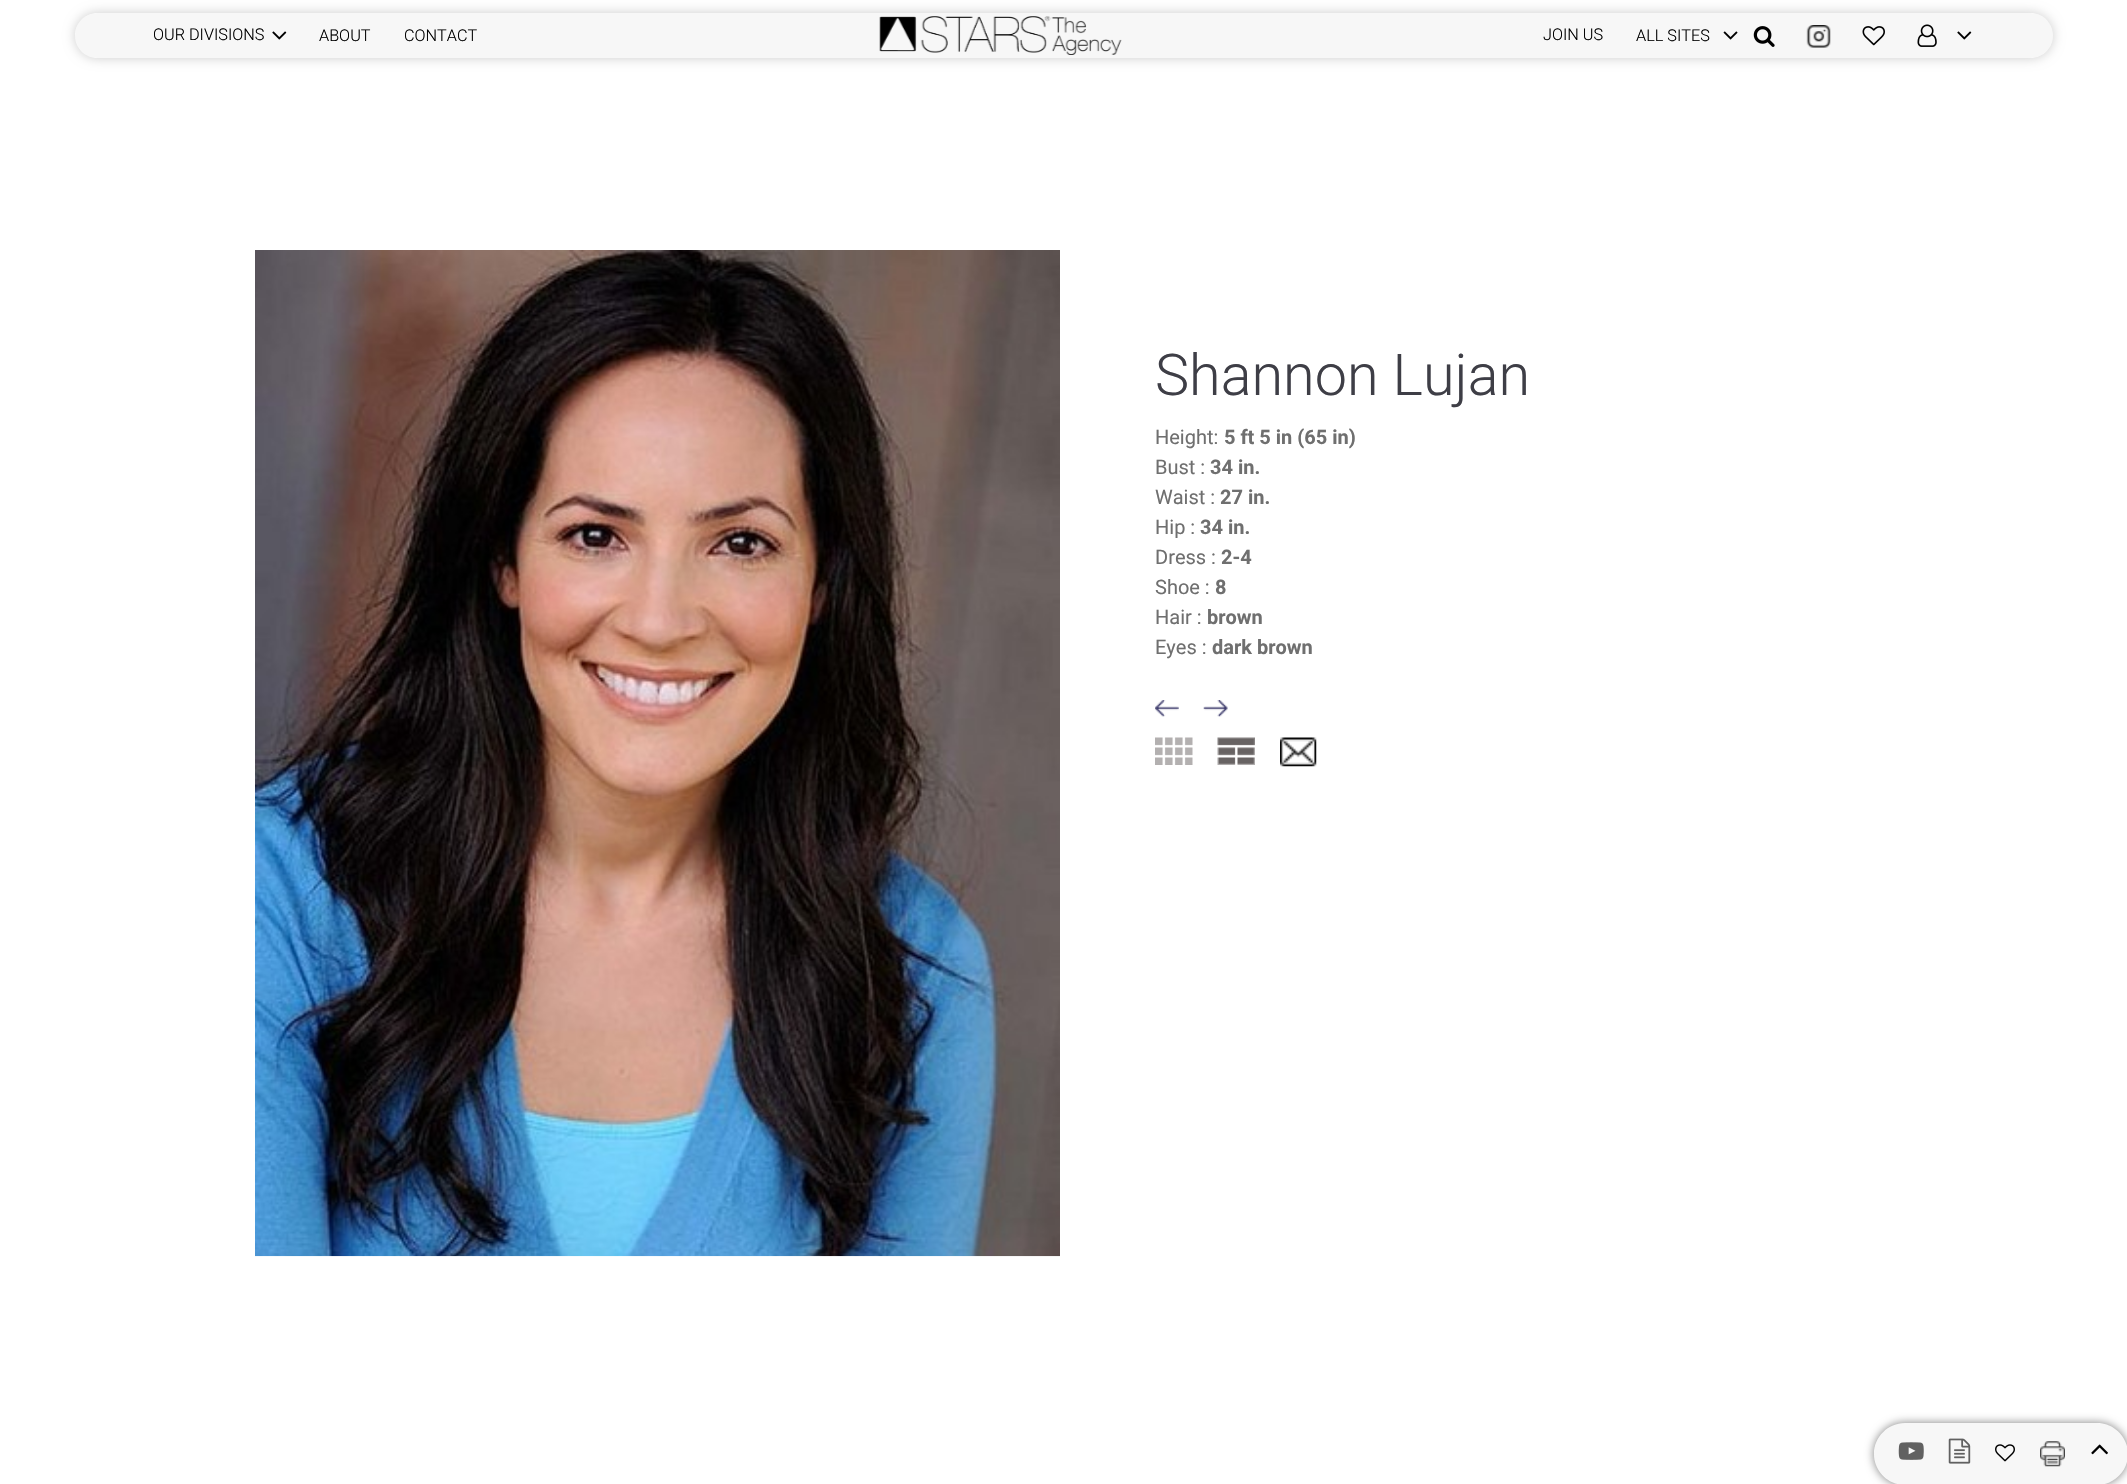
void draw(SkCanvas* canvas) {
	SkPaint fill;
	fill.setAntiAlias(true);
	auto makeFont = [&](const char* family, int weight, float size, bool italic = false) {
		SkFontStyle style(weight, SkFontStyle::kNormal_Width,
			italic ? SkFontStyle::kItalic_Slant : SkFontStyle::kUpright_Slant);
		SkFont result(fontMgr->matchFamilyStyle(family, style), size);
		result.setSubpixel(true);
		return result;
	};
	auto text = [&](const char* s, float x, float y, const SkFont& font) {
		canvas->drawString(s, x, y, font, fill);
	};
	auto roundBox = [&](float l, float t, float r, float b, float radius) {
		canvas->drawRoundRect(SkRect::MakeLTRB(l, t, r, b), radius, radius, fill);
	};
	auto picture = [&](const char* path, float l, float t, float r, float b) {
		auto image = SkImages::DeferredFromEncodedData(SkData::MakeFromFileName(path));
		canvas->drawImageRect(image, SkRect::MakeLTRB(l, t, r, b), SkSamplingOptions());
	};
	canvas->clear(0xFFFFFFFF);
	canvas->save();
	canvas->clipPath(SkPathBuilder(SkPathFillType::kEvenOdd).moveTo(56, 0).lineTo(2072, 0).lineTo(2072, 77).lineTo(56, 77).close().moveTo(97.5f, 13).lineTo(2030.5f, 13).cubicTo(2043, 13, 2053, 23, 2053, 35.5f).cubicTo(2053, 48, 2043, 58, 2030.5f, 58).lineTo(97.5f, 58).cubicTo(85, 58, 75, 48, 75, 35.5f).cubicTo(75, 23, 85, 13, 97.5f, 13).close().detach(), true);
	fill.setColor(0x33000000);
	fill.setMaskFilter(SkMaskFilter::MakeBlur(kNormal_SkBlurStyle, 6));
	canvas->drawRoundRect(SkRect::MakeLTRB(75, 13, 2053, 58), 22.5f, 22.5f, fill);
	fill.setMaskFilter(nullptr);
	canvas->restore();
	fill.setColor(0x33D9D9D9);
	roundBox(75, 13, 2053, 58, 22.5f);
	picture("image0.png", 272, 31, 287, 40);
	picture("image1.png", 879, 16, 1122, 55);
	picture("image2.png", 1723, 31, 1738, 40);
	picture("image3.png", 1753, 26, 1775, 47);
	picture("image4.png", 1806, 25, 1831, 48);
	picture("image5.png", 1862, 26, 1885, 46);
	picture("image6.png", 1917, 24, 1937, 47);
	picture("image0.png", 1957, 31, 1972, 40);
	picture("image7.png", 255, 250, 1060, 1257);
	picture("image8.png", 1155, 700, 1179, 717);
	picture("image9.png", 1203, 700, 1228, 717);
	picture("image10.png", 1155, 737, 1193, 765);
	picture("image11.png", 1217, 737, 1255, 765);
	picture("image12.png", 1280, 737, 1317, 767);
	canvas->save();
	canvas->clipPath(SkPathBuilder(SkPathFillType::kEvenOdd).moveTo(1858, 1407).lineTo(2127, 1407).lineTo(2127, 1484).lineTo(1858, 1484).close().moveTo(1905, 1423).lineTo(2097, 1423).cubicTo(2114, 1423, 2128, 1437, 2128, 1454).cubicTo(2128, 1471, 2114, 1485, 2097, 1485).lineTo(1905, 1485).cubicTo(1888, 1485, 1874, 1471, 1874, 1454).cubicTo(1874, 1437, 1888, 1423, 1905, 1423).close().detach(), true);
	fill.setColor(0x80000000);
	fill.setMaskFilter(SkMaskFilter::MakeBlur(kNormal_SkBlurStyle, 5));
	canvas->drawRoundRect(SkRect::MakeLTRB(1874, 1423, 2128, 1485), 31, 31, fill);
	fill.setMaskFilter(nullptr);
	canvas->restore();
	fill.setColor(0x33D9D9D9);
	roundBox(1874, 1423, 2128, 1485, 31);
	picture("image13.png", 1898, 1442, 1924, 1460);
	picture("image14.png", 1948, 1438, 1971, 1464);
	picture("image15.png", 1995, 1444, 2015, 1462);
	picture("image16.png", 2040, 1441, 2065, 1467);
	picture("image17.png", 2091, 1444, 2108, 1455);
	auto font1 = makeFont("Roboto", 300, 16.25f);
	fill.setColor(0xFF000000);
	text("OUR DIVISIONS", 153, 40, font1);
	text("ABOUT", 319, 41, font1);
	text("CONTACT", 404, 41, font1);
	text("JOIN US", 1543, 40, font1);
	text("ALL SITES", 1636, 41, font1);
	auto font2 = makeFont("Roboto", 300, 57.5f);
	fill.setColor(0xFF3E3E46);
	text("Shannon Lujan", 1155, 395, font2);
	auto font3 = makeFont("Roboto", 400, 20);
	fill.setColor(0xFF6F6F6F);
	text("Height:", 1155, 444, font3);
	auto font4 = makeFont("Roboto", 700, 20);
	text("5 ft 5 in (65 in)", 1224, 444, font4);
	text("Bust :", 1155, 474, font3);
	text("34 in.", 1210, 474, font4);
	text("Waist :", 1155, 504, font3);
	text("27 in.", 1220, 504, font4);
	text("Hip :", 1155, 534, font3);
	text("34 in.", 1200, 534, font4);
	text("Dress :", 1155, 564, font3);
	text("2-4", 1221, 564, font4);
	text("Shoe :", 1155, 594, font3);
	text("8", 1215, 594, font4);
	text("Hair :", 1155, 624, font3);
	text("brown", 1207, 624, font4);
	text("Eyes :", 1155, 654, font3);
	text("dark brown", 1212, 654, font4);
}
